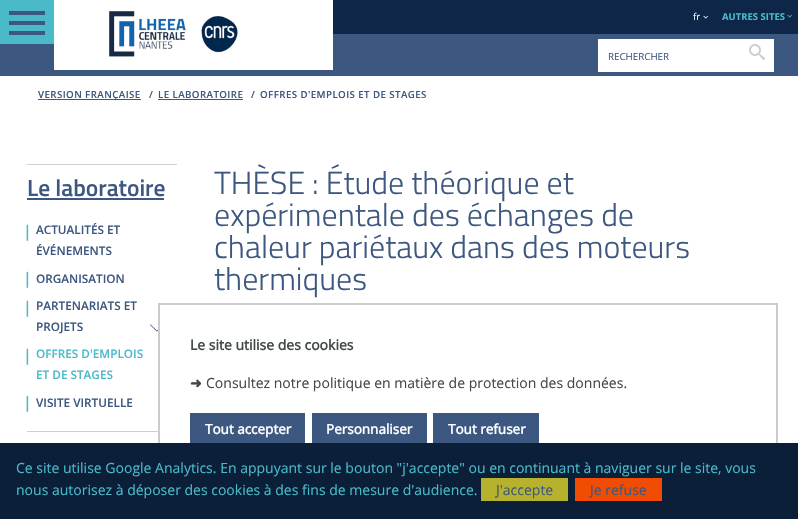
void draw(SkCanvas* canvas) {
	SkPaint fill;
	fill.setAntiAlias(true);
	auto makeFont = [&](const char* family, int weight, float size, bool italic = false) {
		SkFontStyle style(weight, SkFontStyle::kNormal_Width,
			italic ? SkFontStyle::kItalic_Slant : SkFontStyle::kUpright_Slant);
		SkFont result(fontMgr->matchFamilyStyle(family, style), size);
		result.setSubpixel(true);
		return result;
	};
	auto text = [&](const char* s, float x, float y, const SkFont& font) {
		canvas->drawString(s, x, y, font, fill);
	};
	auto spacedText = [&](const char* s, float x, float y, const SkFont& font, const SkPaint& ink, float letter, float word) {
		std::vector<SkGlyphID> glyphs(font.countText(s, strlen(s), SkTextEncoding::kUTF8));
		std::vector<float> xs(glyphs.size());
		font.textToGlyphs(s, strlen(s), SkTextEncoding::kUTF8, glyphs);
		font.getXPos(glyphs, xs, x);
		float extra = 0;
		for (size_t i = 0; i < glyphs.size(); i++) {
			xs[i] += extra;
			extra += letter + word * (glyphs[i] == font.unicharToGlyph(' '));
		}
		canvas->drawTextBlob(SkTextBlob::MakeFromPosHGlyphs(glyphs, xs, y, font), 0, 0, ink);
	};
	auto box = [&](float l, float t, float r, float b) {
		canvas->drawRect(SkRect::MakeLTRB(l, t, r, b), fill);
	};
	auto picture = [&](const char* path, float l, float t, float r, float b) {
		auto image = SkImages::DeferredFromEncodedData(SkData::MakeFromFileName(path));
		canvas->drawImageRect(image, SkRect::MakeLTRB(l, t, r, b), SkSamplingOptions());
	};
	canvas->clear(0xFFFFFFFF);
	fill.setColor(0xFF0E2748);
	box(333, 0, 798, 34);
	picture("image0.png", 703, 15, 708, 19);
	picture("image1.png", 787, 14, 792, 18);
	fill.setColor(0xFF3C5780);
	box(0, 34, 798, 76);
	fill.setColor(0xFFFFFFFF);
	box(54, 34, 333, 70);
	picture("image2.png", 109, 11, 238, 57);
	fill.setColor(0xFF4ABACA);
	box(0, 0, 54, 44);
	fill.setColor(0xFF3C5780);
	canvas->drawPath(SkPathBuilder().moveTo(9, 11).lineTo(45, 11).lineTo(45, 15).lineTo(9, 15).close().moveTo(9, 25).lineTo(9, 21).lineTo(45, 21).lineTo(45, 25).close().moveTo(9, 35).lineTo(9, 31).lineTo(45, 31).lineTo(45, 35).close().detach(), fill);
	fill.setColor(0xFFFFFFFF);
	box(598, 39, 774, 72);
	picture("image3.png", 749, 44, 765, 60);
	fill.setStyle(SkPaint::kStroke_Style);
	fill.setStrokeWidth(2);
	fill.setColor(0xFFCCCCCC);
	canvas->drawRect(SkRect::MakeLTRB(159, 304, 777, 497), fill);
	fill.setStyle(SkPaint::kFill_Style);
	fill.setColor(0xFF0B1F39);
	box(0, 443, 798, 519);
	fill.setColor(0xFFB7B22E);
	box(481, 478, 568, 501);
	fill.setColor(0xFFF04C04);
	box(575, 478, 662, 501);
	fill.setColor(0xFF3C5780);
	box(38, 99, 141, 100);
	box(158, 99, 243, 100);
	fill.setColor(0xFFCFCDD0);
	box(27, 164, 177, 165);
	fill.setColor(0xFF3C5780);
	box(27, 198, 164, 200);
	fill.setColor(0xFFCFCDD0);
	box(27, 431, 158, 432);
	picture("image4.png", 150, 324, 158, 332);
	fill.setColor(0xFF3C5780);
	box(190, 413, 305, 443);
	box(312, 413, 427, 443);
	box(433, 413, 539, 443);
	auto font1 = makeFont("Open Sans", 400, 9.5f);
	fill.setColor(0xFFFFFFFF);
	text("fr", 693, 20, font1);
	auto font2 = makeFont("Open Sans", 700, 9.5f);
	fill.setColor(0xFF4ABACA);
	text("AUTRES SITES", 722, 20, font2);
	auto font3 = makeFont("Open Sans", 400, 9.75f);
	fill.setColor(0xFF3C5780);
	text("RECHERCHER", 608, 60, font3);
	auto font4 = makeFont("Open Sans", 400, 14);
	fill.setColor(0xFF4ABACA);
	text("Ce site utilise Google Analytics. En appuyant sur le bouton \"j'accepte\" ou en continuant à naviguer sur le site, vous", 16, 473, font4);
	text("nous autorisez à déposer des cookies à des fins de mesure d'audience.", 16, 495, font4);
	fill.setColor(0xFF3C5780);
	text("J'accepte", 496, 495, font4);
	text("Je refuse", 590, 495, font4);
	auto font5 = makeFont("Open Sans", 600, 9.75f);
	spacedText("VERSION FRANÇAISE", 38, 98, font5, fill, 0.4f, 0);
	spacedText("/", 149, 98, font5, fill, 0.4f, 0);
	spacedText("LE LABORATOIRE", 158, 98, font5, fill, 0.4f, 0);
	spacedText("/", 251, 98, font5, fill, 0.4f, 0);
	spacedText("OFFRES D'EMPLOIS ET DE STAGES", 260, 98, font5, fill, 0.4f, 0);
	auto font6 = makeFont("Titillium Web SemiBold", 600, 23.5f);
	text("Le laboratoire", 27, 196, font6);
	auto font7 = makeFont("Open Sans", 600, 16);
	fill.setColor(0xFF4ABACA);
	text("|", 23, 237, font7);
	auto font8 = makeFont("Open Sans", 600, 11.75f);
	fill.setColor(0xFF3C5780);
	text("ACTUALITÉS ET", 36, 234, font8);
	text("ÉVÉNEMENTS", 36, 255, font8);
	fill.setColor(0xFF4ABACA);
	text("|", 23, 284, font7);
	fill.setColor(0xFF3C5780);
	text("ORGANISATION", 36, 283, font8);
	fill.setColor(0xFF4ABACA);
	text("|", 23, 313, font7);
	fill.setColor(0xFF3C5780);
	text("PARTENARIATS ET", 36, 310, font8);
	text("PROJETS", 36, 331, font8);
	fill.setColor(0xFF4ABACA);
	text("|", 23, 361, font7);
	text("OFFRES D'EMPLOIS", 36, 358, font8);
	text("ET DE STAGES", 36, 379, font8);
	text("|", 23, 408, font7);
	fill.setColor(0xFF3C5780);
	text("VISITE VIRTUELLE", 36, 407, font8);
	auto font9 = makeFont("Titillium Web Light", 300, 32);
	text("THÈSE : Étude théorique et", 214, 194, font9);
	text("expérimentale des échanges de", 214, 226, font9);
	text("chaleur pariétaux dans des moteurs", 214, 258, font9);
	text("thermiques", 214, 290, font9);
	auto font10 = makeFont("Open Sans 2", 700, 14);
	fill.setColor(0xFF404849);
	text("Le site utilise des cookies", 190, 350, font10);
	auto font11 = makeFont("DejaVu Sans", 700, 14);
	text("➜", 190, 388, font11);
	text("Consultez notre politique en matière de protection des données.", 206, 388, font4);
	auto font12 = makeFont("Open Sans 2", 700, 13.5f);
	fill.setColor(0xFFFFFFFF);
	text("Tout accepter", 205, 434, font12);
	text("Personnaliser", 326, 434, font12);
	text("Tout refuser", 448, 434, font12);
}
